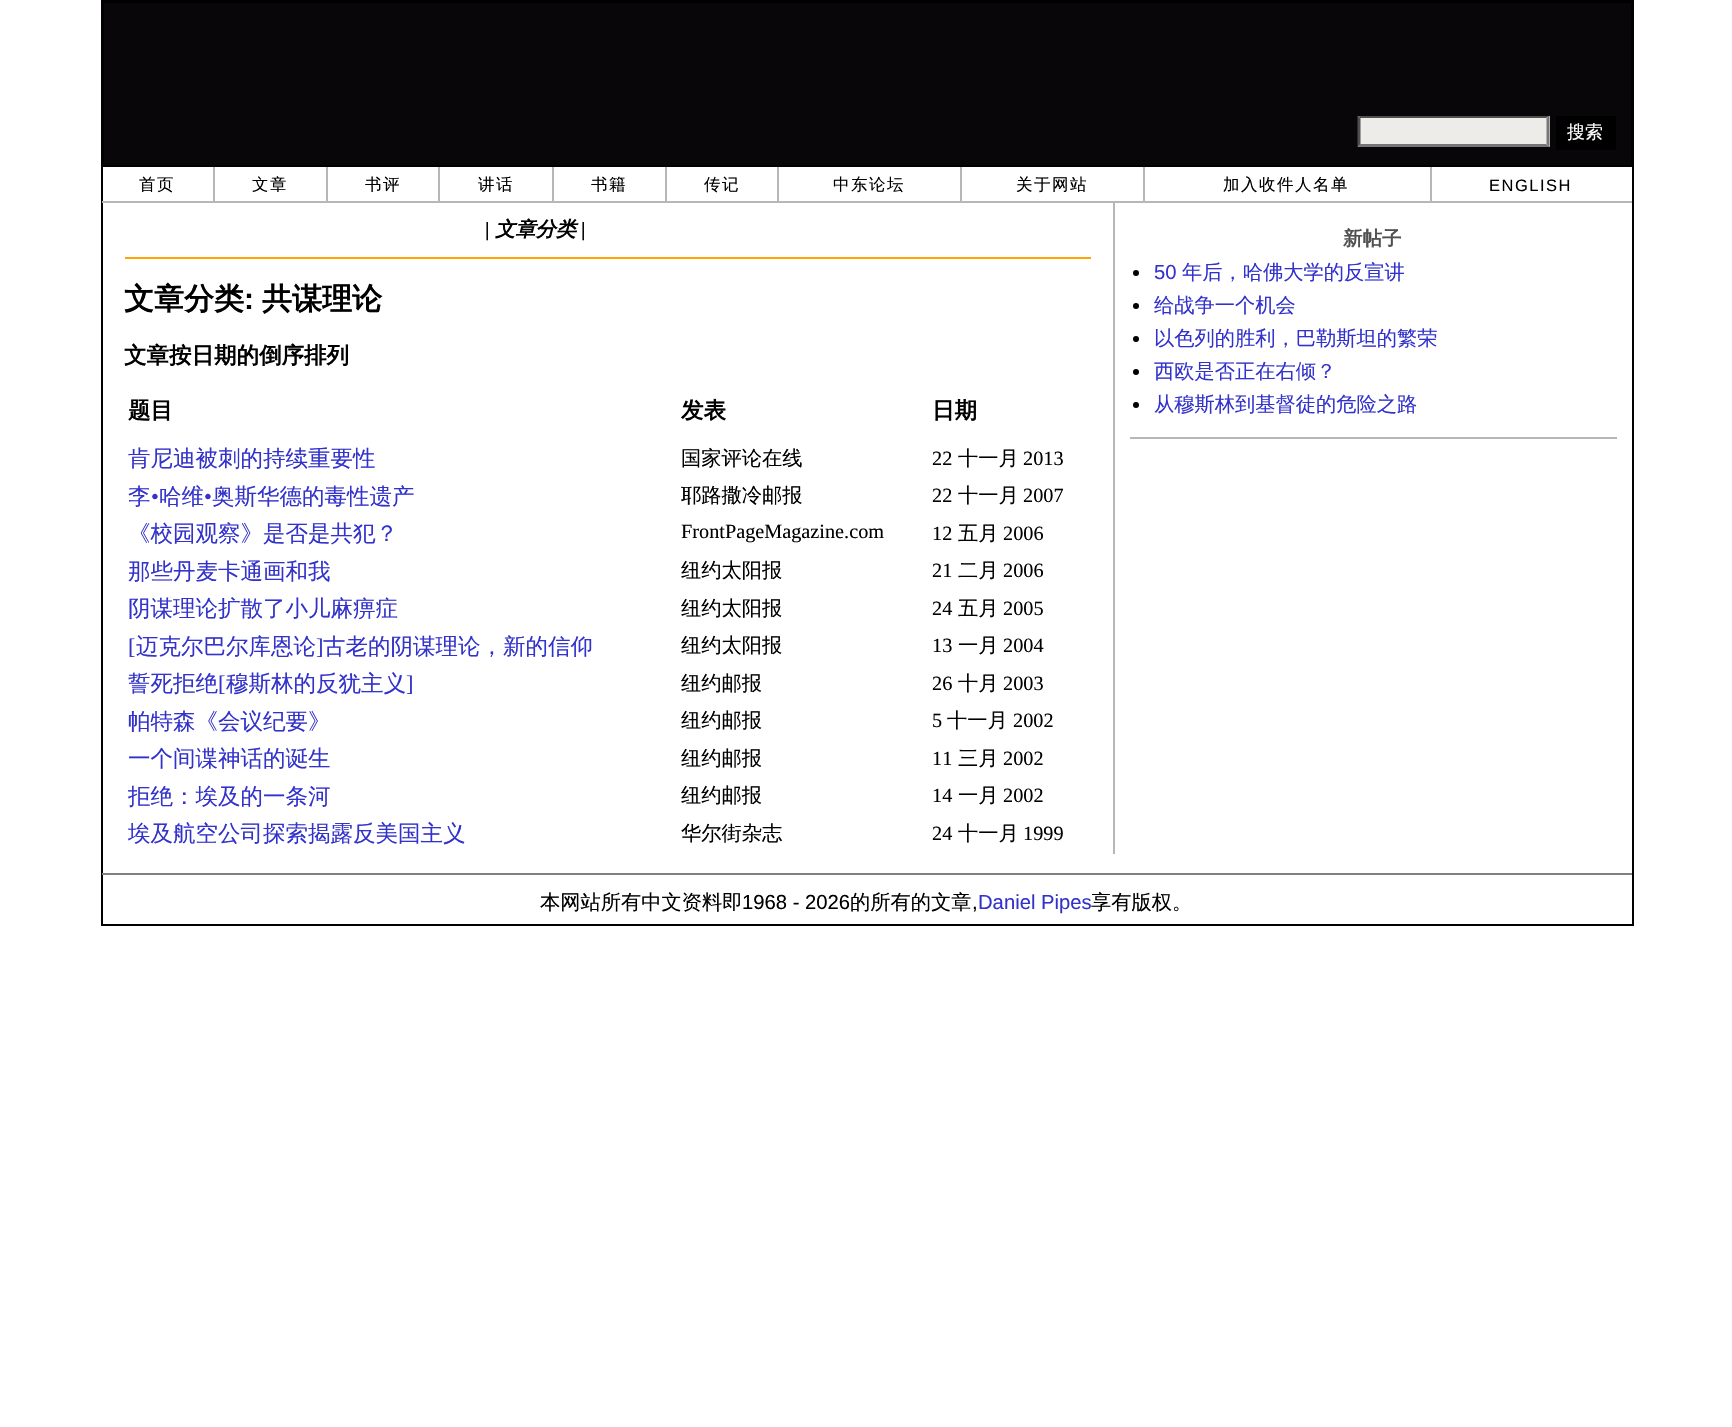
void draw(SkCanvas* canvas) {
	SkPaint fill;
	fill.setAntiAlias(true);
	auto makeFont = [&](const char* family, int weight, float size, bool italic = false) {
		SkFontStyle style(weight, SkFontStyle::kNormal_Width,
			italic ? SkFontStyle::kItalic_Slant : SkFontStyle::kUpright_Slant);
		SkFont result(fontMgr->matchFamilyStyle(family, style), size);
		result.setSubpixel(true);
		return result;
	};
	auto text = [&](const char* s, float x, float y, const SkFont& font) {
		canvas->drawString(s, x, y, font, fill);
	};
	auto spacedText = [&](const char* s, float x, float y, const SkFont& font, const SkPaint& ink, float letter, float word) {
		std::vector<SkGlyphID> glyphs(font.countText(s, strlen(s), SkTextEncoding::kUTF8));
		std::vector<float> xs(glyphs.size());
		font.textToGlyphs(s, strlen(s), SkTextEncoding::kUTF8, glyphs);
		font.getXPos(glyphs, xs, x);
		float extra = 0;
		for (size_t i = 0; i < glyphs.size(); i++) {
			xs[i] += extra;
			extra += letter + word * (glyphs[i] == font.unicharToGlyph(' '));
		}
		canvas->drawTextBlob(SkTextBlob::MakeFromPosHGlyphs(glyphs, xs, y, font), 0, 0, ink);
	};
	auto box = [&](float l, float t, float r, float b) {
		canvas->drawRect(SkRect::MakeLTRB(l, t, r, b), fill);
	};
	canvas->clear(0xFFFFFFFF);
	fill.setStyle(SkPaint::kStroke_Style);
	fill.setStrokeWidth(2);
	fill.setColor(0xFF000000);
	canvas->drawRect(SkRect::MakeLTRB(102, 1, 1633, 925), fill);
	canvas->drawRect(SkRect::MakeLTRB(103, 3, 1631, 166), fill);
	fill.setStyle(SkPaint::kFill_Style);
	fill.setColor(0xFF090609);
	box(104, 3, 1631, 165);
	fill.setColor(0xFFEEECE9);
	box(1358, 116, 1550, 147);
	fill.setColor(0xFF4F4F4F);
	canvas->drawPath(SkPathBuilder().moveTo(1358, 116).lineTo(1550, 116).lineTo(1546, 118).lineTo(1360, 118).close().detach(), fill);
	fill.setColor(0xFF767676);
	canvas->drawPath(SkPathBuilder().moveTo(1549.5f, 115.5f).lineTo(1549.5f, 147).lineTo(1546.5f, 144).lineTo(1546.5f, 118.5f).close().detach(), fill);
	canvas->drawPath(SkPathBuilder().moveTo(1550, 147).lineTo(1358, 147).lineTo(1360, 144).lineTo(1546, 144).close().detach(), fill);
	fill.setColor(0xFF4F4F4F);
	canvas->drawPath(SkPathBuilder().moveTo(1357.5f, 147).lineTo(1357.5f, 115.5f).lineTo(1360.5f, 118.5f).lineTo(1360.5f, 144).close().detach(), fill);
	fill.setColor(0xFF000000);
	box(1556, 116, 1616, 150);
	fill.setColor(0xFFB7B7B7);
	box(213, 167, 215, 203);
	box(102, 201, 215, 203);
	box(326, 167, 328, 203);
	box(215, 201, 327, 203);
	box(438, 167, 440, 203);
	box(327, 201, 440, 203);
	box(552, 167, 554, 203);
	box(440, 201, 554, 203);
	box(665, 167, 667, 203);
	box(554, 201, 666, 203);
	box(777, 167, 779, 203);
	box(666, 201, 779, 203);
	box(960, 167, 962, 203);
	box(779, 201, 962, 203);
	box(1143, 167, 1145, 203);
	box(962, 201, 1145, 203);
	box(1430, 167, 1432, 203);
	box(1145, 201, 1632, 203);
	fill.setColor(0xFFFFA500);
	box(125, 257, 1091, 259);
	fill.setColor(0xFFB7B7B7);
	box(1113, 203, 1115, 854);
	box(1130, 437, 1617, 439);
	fill.setColor(0xFF000000);
	canvas->drawCircle(1136, 273, 3, fill);
	canvas->drawCircle(1136, 306, 3, fill);
	canvas->drawCircle(1136, 339, 3, fill);
	canvas->drawCircle(1136, 372, 3, fill);
	canvas->drawCircle(1136, 405, 3, fill);
	fill.setColor(0xFF808080);
	box(102, 873, 1632, 875);
	auto font1 = makeFont("WenQuanYi Zen Hei", 500, 18);
	fill.setColor(0xFFFFFFFF);
	text("搜索", 1567, 138, font1);
	auto font2 = makeFont("WenQuanYi Zen Hei", 500, 16.5f);
	fill.setColor(0xFF000000);
	spacedText("首页", 139, 190, font2, fill, 1.5f, 0);
	spacedText("文章", 252, 190, font2, fill, 1.5f, 0);
	spacedText("书评", 365, 190, font2, fill, 1.5f, 0);
	spacedText("讲话", 478, 190, font2, fill, 1.5f, 0);
	spacedText("书籍", 591, 190, font2, fill, 1.5f, 0);
	spacedText("传记", 704, 190, font2, fill, 1.5f, 0);
	spacedText("中东论坛", 833, 190, font2, fill, 1.5f, 0);
	spacedText("关于网站", 1016, 190, font2, fill, 1.5f, 0);
	spacedText("加入收件人名单", 1223, 190, font2, fill, 1.5f, 0);
	auto font3 = makeFont("Liberation Sans", 400, 16.5f);
	spacedText("ENGLISH", 1489, 191, font3, fill, 1.5f, 0);
	auto font4 = makeFont("Liberation Serif", 700, 20.25f);
	text("|", 485, 236, font4);
	auto font5 = makeFont("WenQuanYi Zen Hei", 700, 20.25f, true);
	text("文章分类", 495, 236, font5);
	text("|", 581, 236, font4);
	auto font6 = makeFont("WenQuanYi Zen Hei", 700, 30);
	text("文章分类", 124, 309, font6);
	auto font7 = makeFont("Liberation Sans", 700, 30);
	text(":", 244, 309, font7);
	text("共谋理论", 262, 309, font6);
	auto font8 = makeFont("WenQuanYi Zen Hei", 700, 22.5f);
	text("文章按日期的倒序排列", 124, 363, font8);
	text("题目", 128, 418, font8);
	text("发表", 681, 418, font8);
	text("日期", 932, 418, font8);
	auto font9 = makeFont("WenQuanYi Zen Hei", 500, 22.5f);
	fill.setColor(0xFF3333CC);
	text("肯尼迪被刺的持续重要性", 128, 466, font9);
	auto font10 = makeFont("WenQuanYi Zen Hei", 500, 20.25f);
	fill.setColor(0xFF000000);
	text("国家评论在线", 681, 465, font10);
	auto font11 = makeFont("Liberation Serif", 400, 20.25f);
	text("22", 932, 465, font11);
	text("十一月", 958, 465, font10);
	text("2013", 1023, 465, font11);
	fill.setColor(0xFF3333CC);
	text("李", 128, 504, font9);
	auto font12 = makeFont("Liberation Serif", 400, 22.5f);
	text("•", 151, 504, font12);
	text("哈维", 159, 504, font9);
	text("•", 204, 504, font12);
	text("奥斯华德的毒性遗产", 212, 504, font9);
	fill.setColor(0xFF000000);
	text("耶路撒冷邮报", 681, 502, font10);
	text("22", 932, 502, font11);
	text("十一月", 958, 502, font10);
	text("2007", 1023, 502, font11);
	fill.setColor(0xFF3333CC);
	text("《校园观察》是否是共犯？", 128, 541, font9);
	fill.setColor(0xFF000000);
	text("FrontPageMagazine.com", 681, 538, font11);
	text("12", 932, 540, font11);
	text("五月", 958, 540, font10);
	text("2006", 1003, 540, font11);
	fill.setColor(0xFF3333CC);
	text("那些丹麦卡通画和我", 128, 579, font9);
	fill.setColor(0xFF000000);
	text("纽约太阳报", 681, 577, font10);
	text("21", 932, 577, font11);
	text("二月", 958, 577, font10);
	text("2006", 1003, 577, font11);
	fill.setColor(0xFF3333CC);
	text("阴谋理论扩散了小儿麻痹症", 128, 616, font9);
	fill.setColor(0xFF000000);
	text("纽约太阳报", 681, 615, font10);
	text("24", 932, 615, font11);
	text("五月", 958, 615, font10);
	text("2005", 1003, 615, font11);
	fill.setColor(0xFF3333CC);
	text("[", 128, 654, font12);
	text("迈克尔巴尔库恩论", 136, 654, font9);
	text("]", 316, 654, font12);
	text("古老的阴谋理论，新的信仰", 323, 654, font9);
	fill.setColor(0xFF000000);
	text("纽约太阳报", 681, 652, font10);
	text("13", 932, 652, font11);
	text("一月", 958, 652, font10);
	text("2004", 1003, 652, font11);
	fill.setColor(0xFF3333CC);
	text("誓死拒绝", 128, 691, font9);
	text("[", 218, 691, font12);
	text("穆斯林的反犹主义", 226, 691, font9);
	text("]", 406, 691, font12);
	fill.setColor(0xFF000000);
	text("纽约邮报", 681, 690, font10);
	text("26", 932, 690, font11);
	text("十月", 958, 690, font10);
	text("2003", 1003, 690, font11);
	fill.setColor(0xFF3333CC);
	text("帕特森《会议纪要》", 128, 729, font9);
	fill.setColor(0xFF000000);
	text("纽约邮报", 681, 727, font10);
	text("5", 932, 727, font11);
	text("十一月", 947, 727, font10);
	text("2002", 1013, 727, font11);
	fill.setColor(0xFF3333CC);
	text("一个间谍神话的诞生", 128, 766, font9);
	fill.setColor(0xFF000000);
	text("纽约邮报", 681, 765, font10);
	text("11", 932, 765, font11);
	text("三月", 958, 765, font10);
	text("2002", 1003, 765, font11);
	fill.setColor(0xFF3333CC);
	text("拒绝：埃及的一条河", 128, 804, font9);
	fill.setColor(0xFF000000);
	text("纽约邮报", 681, 802, font10);
	text("14", 932, 802, font11);
	text("一月", 958, 802, font10);
	text("2002", 1003, 802, font11);
	fill.setColor(0xFF3333CC);
	text("埃及航空公司探索揭露反美国主义", 128, 841, font9);
	fill.setColor(0xFF000000);
	text("华尔街杂志", 681, 840, font10);
	text("24", 932, 840, font11);
	text("十一月", 958, 840, font10);
	text("1999", 1023, 840, font11);
	auto font13 = makeFont("WenQuanYi Zen Hei", 700, 19.5f);
	fill.setColor(0xFF525050);
	text("新帖子", 1343, 245, font13);
	auto font14 = makeFont("Liberation Sans", 400, 20.25f);
	fill.setColor(0xFF3333CC);
	text("50", 1154, 279, font14);
	text("年后，哈佛大学的反宣讲", 1182, 279, font10);
	text("给战争一个机会", 1154, 312, font10);
	text("以色列的胜利，巴勒斯坦的繁荣", 1154, 345, font10);
	text("西欧是否正在右倾？", 1154, 378, font10);
	text("从穆斯林到基督徒的危险之路", 1154, 411, font10);
	fill.setColor(0xFF000000);
	text("本网站所有中文资料即", 540, 909, font10);
	text("1968 - 2026", 742, 909, font14);
	text("的所有的文章", 850, 909, font10);
	text(",", 972, 909, font14);
	fill.setColor(0xFF3333CC);
	text("Daniel Pipes", 978, 909, font14);
	fill.setColor(0xFF000000);
	text("享有版权。", 1091, 909, font10);
}
